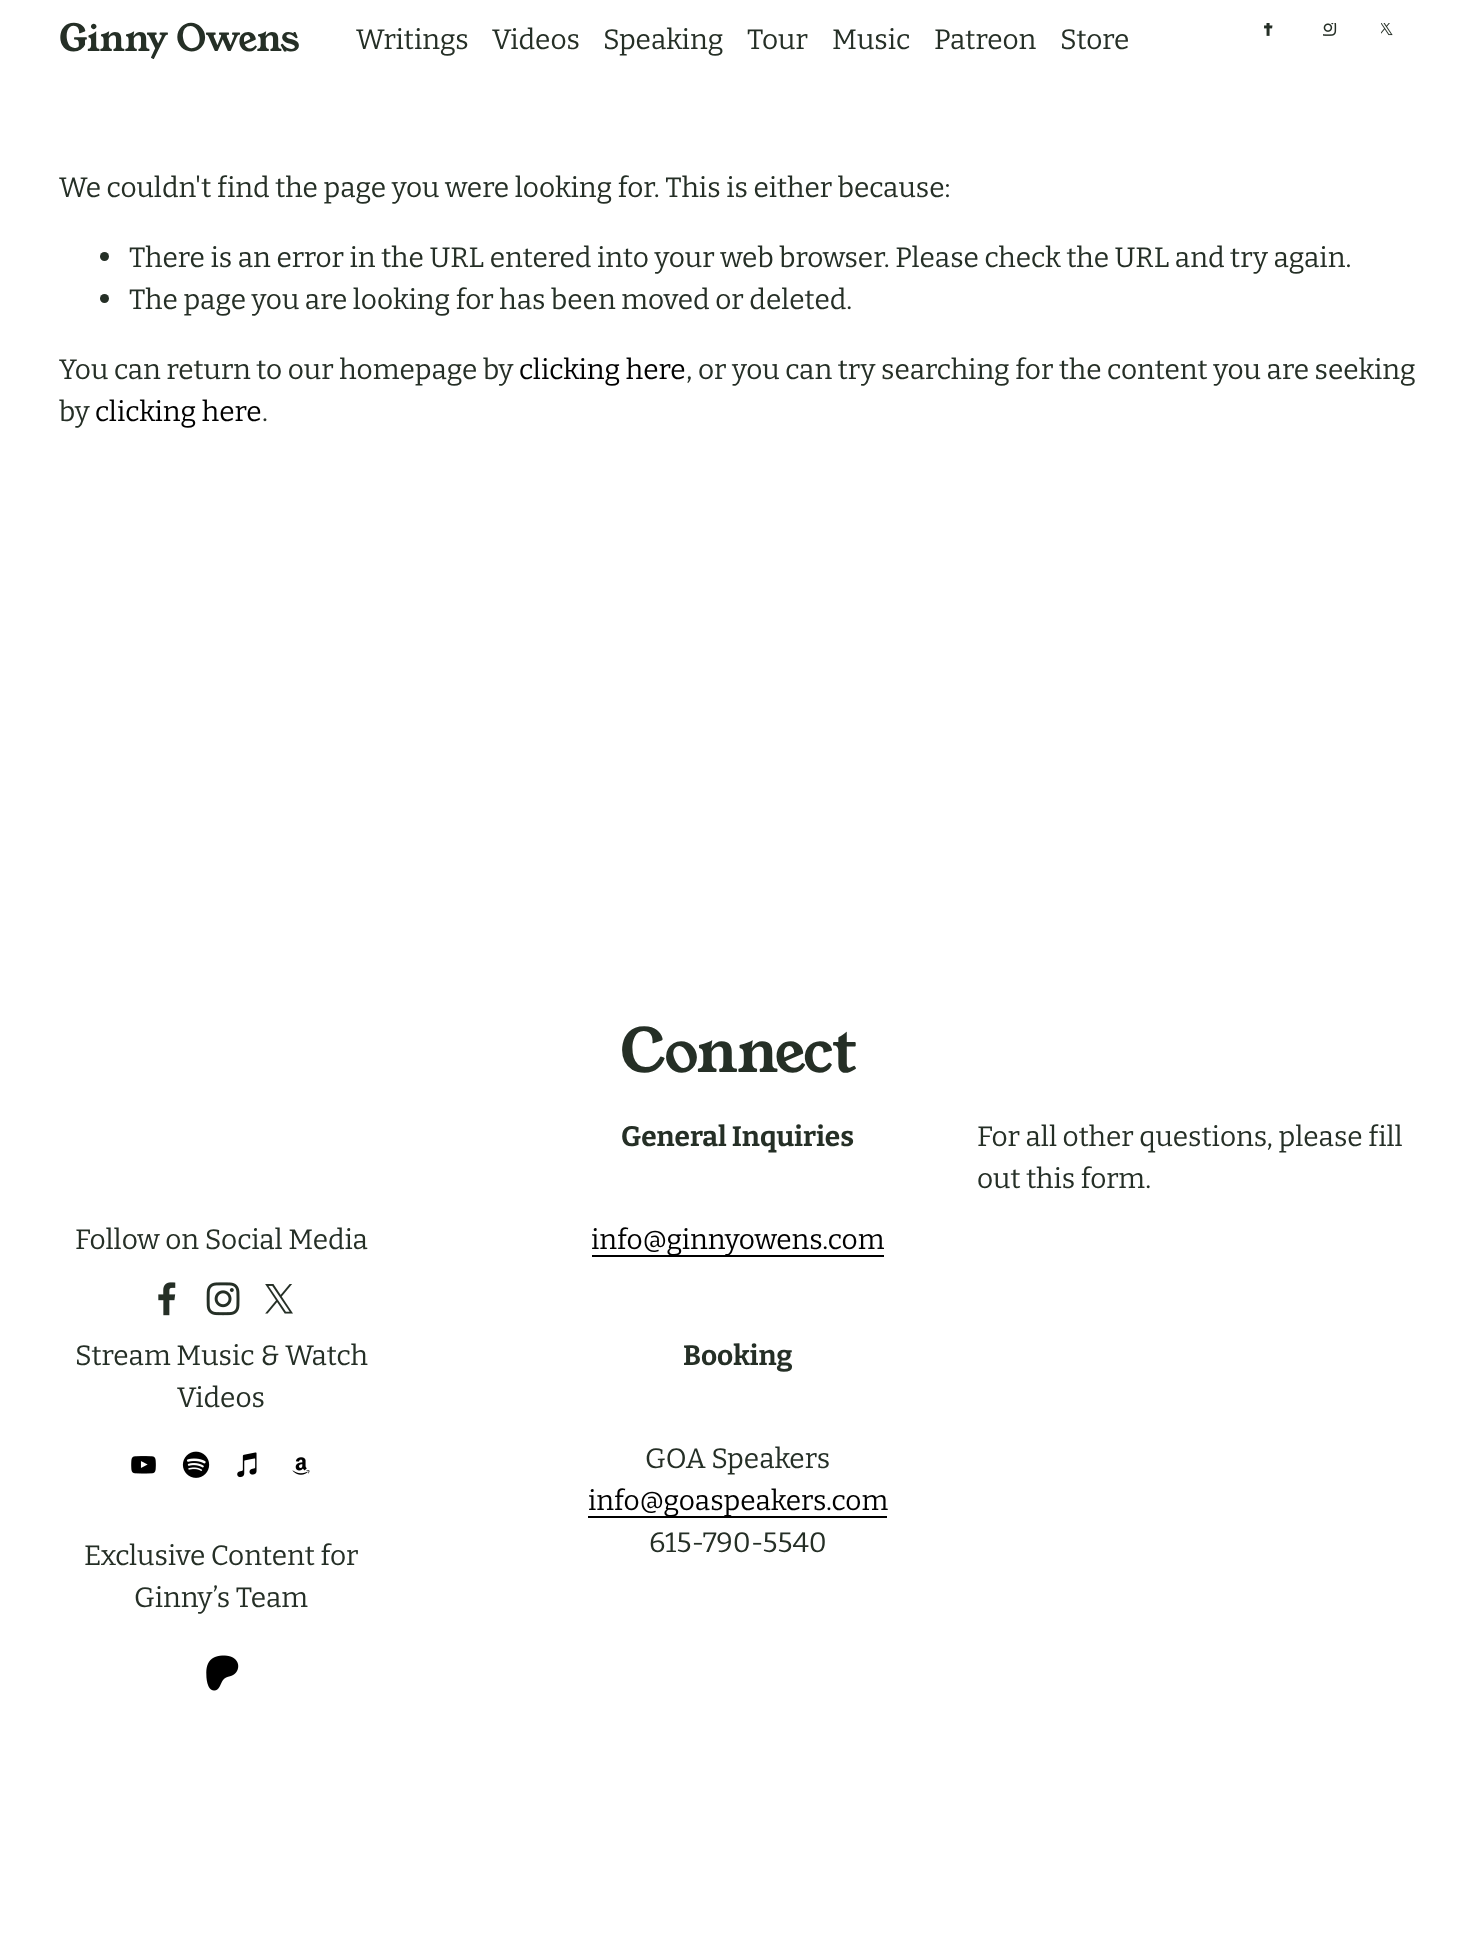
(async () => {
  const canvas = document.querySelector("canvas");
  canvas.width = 1475;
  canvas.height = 1959;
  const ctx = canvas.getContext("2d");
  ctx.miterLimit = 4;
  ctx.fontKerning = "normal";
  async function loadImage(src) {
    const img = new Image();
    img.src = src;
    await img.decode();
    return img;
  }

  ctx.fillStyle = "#ffffff";
  ctx.fillRect(0, 0, 1475, 1959);
  ctx.drawImage(await loadImage("img/1.png"), 1264, 23, 9, 13);
  ctx.drawImage(await loadImage("img/2.png"), 1323, 23, 14, 13);
  ctx.drawImage(await loadImage("img/3.png"), 1381, 23, 12, 13);
  ctx.fillStyle = "#252f26";
  ctx.beginPath();
  ctx.arc(104.5, 256.5, 4.5, 0, Math.PI * 2);
  ctx.fill();
  ctx.beginPath();
  ctx.arc(104.5, 298.5, 4.5, 0, Math.PI * 2);
  ctx.fill();
  ctx.fillStyle = "#000000";
  ctx.fillRect(592, 1255, 292, 2);
  ctx.drawImage(await loadImage("img/4.png"), 158, 1282, 18, 34);
  ctx.drawImage(await loadImage("img/5.png"), 206, 1282, 34, 34);
  ctx.drawImage(await loadImage("img/6.png"), 265, 1284, 28, 30);
  ctx.drawImage(await loadImage("img/7.png"), 131, 1456, 25, 18);
  ctx.drawImage(await loadImage("img/8.png"), 182, 1451, 28, 27);
  ctx.drawImage(await loadImage("img/9.png"), 237, 1452, 20, 26);
  ctx.drawImage(await loadImage("img/10.png"), 292, 1457, 18, 18);
  ctx.fillRect(588, 1516, 299, 2);
  ctx.drawImage(await loadImage("img/11.png"), 206, 1655, 33, 36);
  ctx.letterSpacing = "-0.75px";
  ctx.font = "37px Young Serif";
  ctx.fillStyle = "#252f26";
  ctx.fillText("Ginny Owens", 59, 51);
  ctx.letterSpacing = "0px";
  ctx.font = "28px Bitter";
  for (const [text, x, y] of [
    ["Writings", 356, 49],
    ["Videos", 492, 49],
    ["Speaking", 603, 49],
    ["Tour", 747, 49],
    ["Music", 832, 49],
    ["Patreon", 934, 49],
    ["Store", 1060, 49],
    ["We couldn't find the page you were looking for. This is either because:", 59, 197],
    ["There is an error in the URL entered into your web browser. Please check the URL and try again.", 129, 267],
    ["The page you are looking for has been moved or deleted.", 129, 309],
    ["You can return to our homepage by", 59, 379],
  ]) {
    ctx.fillText(text, x, y);
  }
  ctx.fillStyle = "#000000";
  ctx.fillText("clicking here", 519, 379);
  ctx.fillStyle = "#252f26";
  ctx.fillText(", or you can try searching for the content you are seeking", 686, 379);
  ctx.fillText("by", 59, 421);
  ctx.fillStyle = "#000000";
  ctx.fillText("clicking here", 95, 421);
  ctx.fillStyle = "#252f26";
  ctx.fillText(".", 262, 421);
  ctx.letterSpacing = "-1.25px";
  ctx.font = "60px Young Serif";
  ctx.fillText("Connect", 620, 1072);
  ctx.letterSpacing = "0px";
  ctx.font = "bold 28px Bitter";
  ctx.fillText("General Inquiries", 621, 1146);
  ctx.font = "28px Bitter";
  for (const [text, x, y] of [
    ["For all other questions, please fill", 977, 1146],
    ["out this form.", 977, 1188],
    ["Follow on Social Media", 75, 1249],
  ]) {
    ctx.fillText(text, x, y);
  }
  ctx.fillStyle = "#000000";
  ctx.fillText("info@ginnyowens.com", 591, 1249);
  ctx.fillStyle = "#252f26";
  ctx.fillText("Stream Music & Watch", 75, 1365);
  ctx.fillText("Videos", 177, 1407);
  ctx.font = "bold 28px Bitter";
  ctx.fillText("Booking", 683, 1365);
  ctx.font = "28px Bitter";
  ctx.fillText("GOA Speakers", 645, 1468);
  ctx.fillStyle = "#000000";
  ctx.fillText("info@goaspeakers.com", 588, 1510);
  ctx.fillStyle = "#252f26";
  for (const [text, x, y] of [
    ["615-790-5540", 649, 1552],
    ["Exclusive Content for", 84, 1565],
    ["Ginny’s Team", 134, 1607],
  ]) {
    ctx.fillText(text, x, y);
  }
})();
